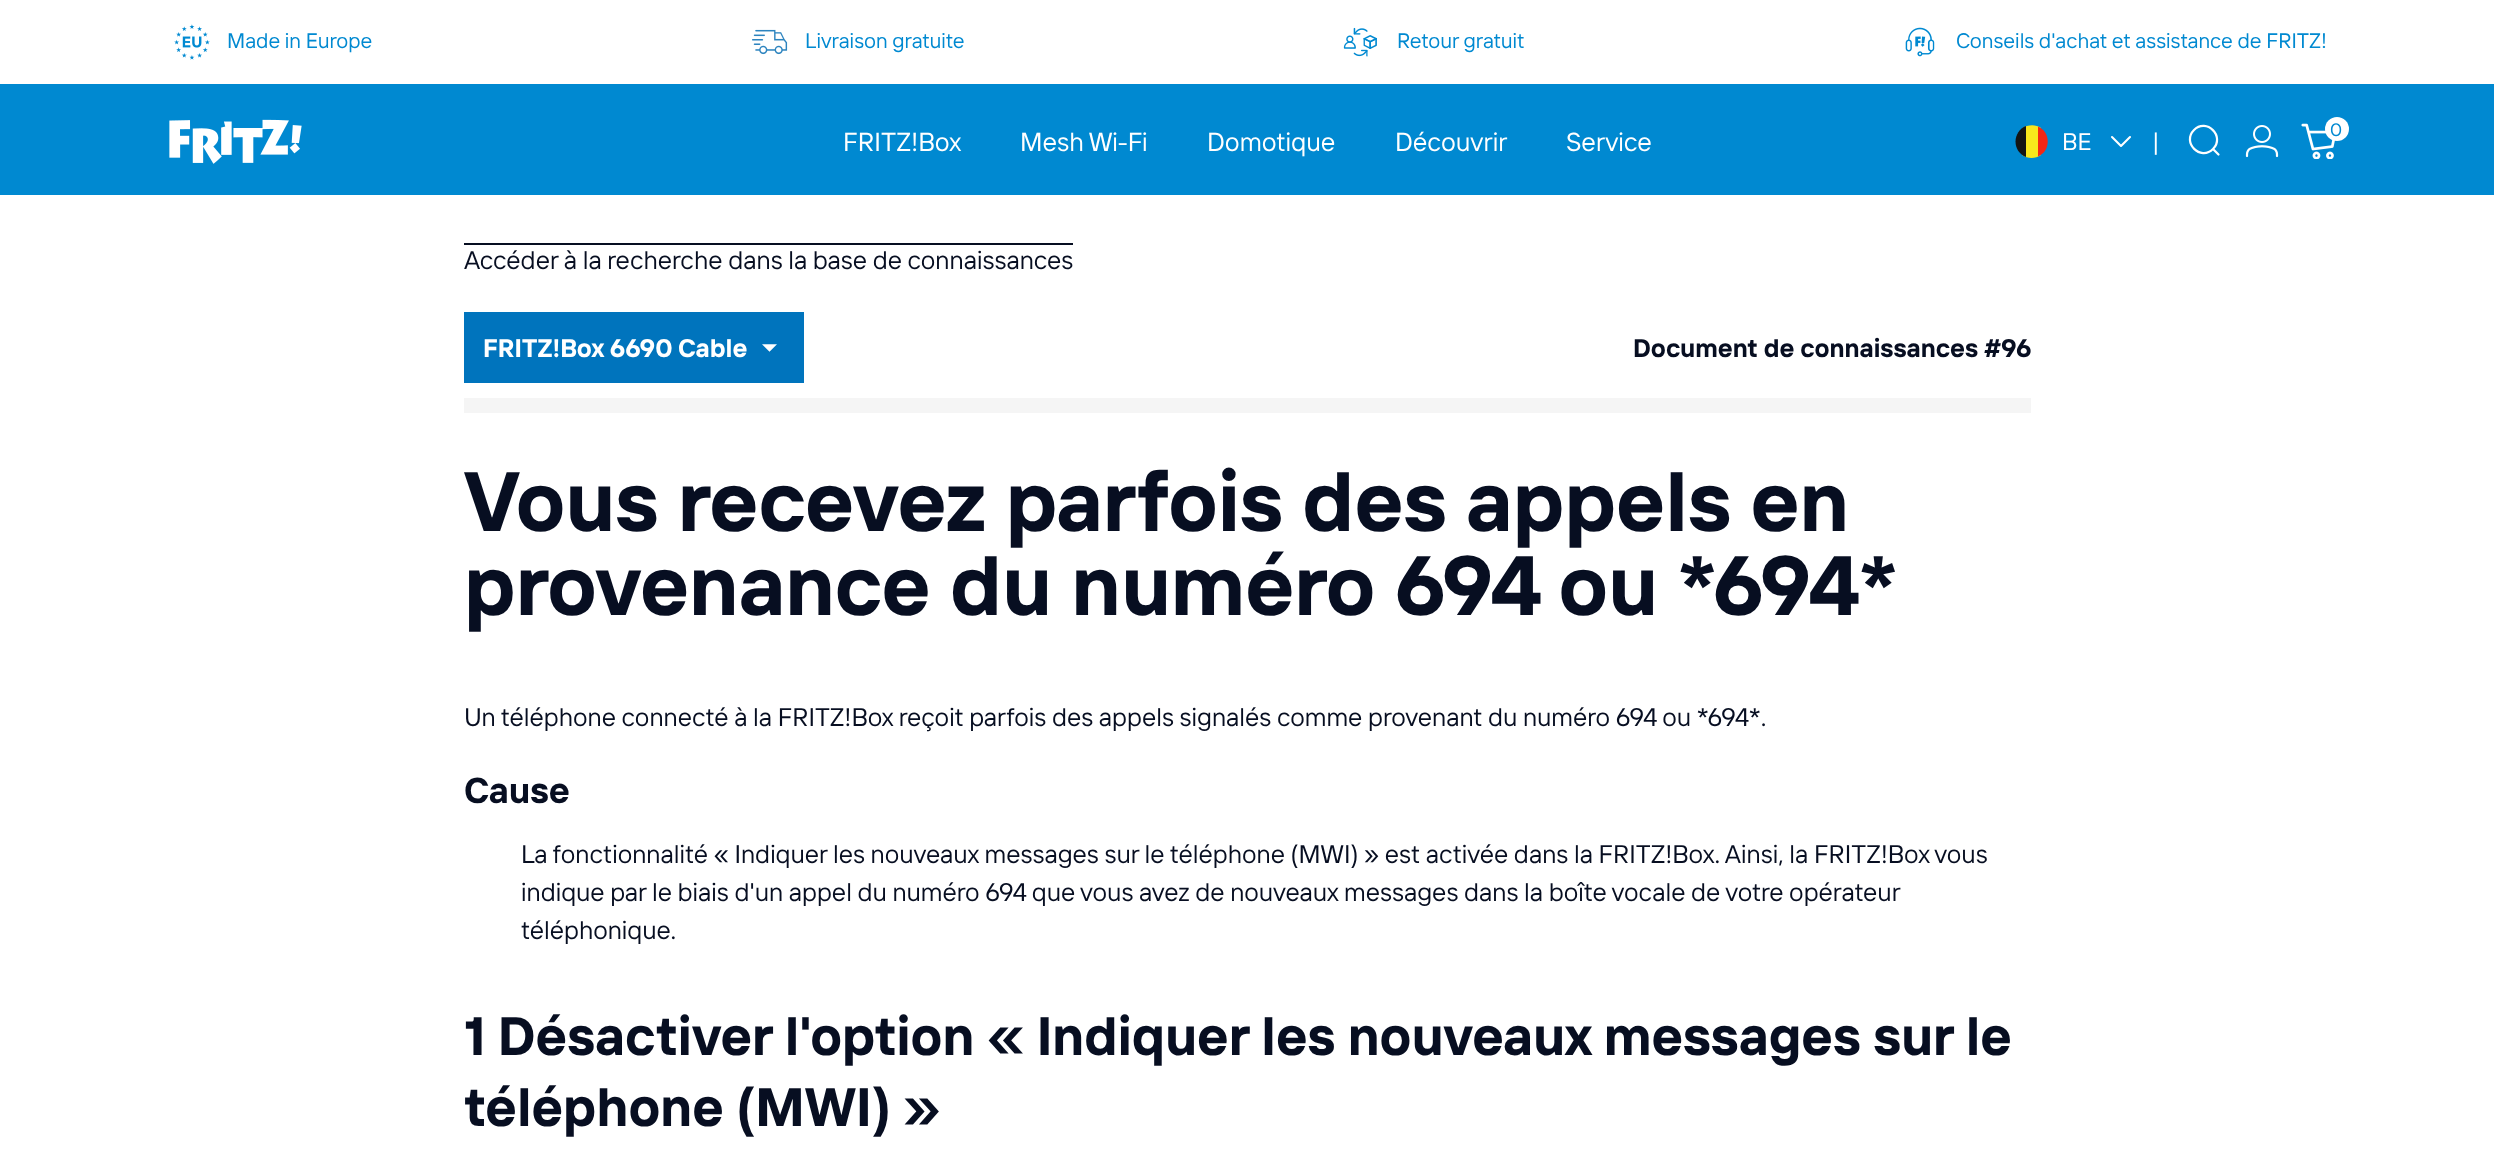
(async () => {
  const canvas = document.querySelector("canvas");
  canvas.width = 2494;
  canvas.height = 1162;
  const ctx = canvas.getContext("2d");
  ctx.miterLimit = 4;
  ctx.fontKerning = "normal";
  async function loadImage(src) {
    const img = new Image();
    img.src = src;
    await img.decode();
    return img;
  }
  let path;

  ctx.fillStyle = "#ffffff";
  ctx.fillRect(0, 0, 2494, 1162);
  ctx.drawImage(await loadImage("img/1.png"), 174, 24, 36, 36);
  ctx.drawImage(await loadImage("img/2.png"), 752, 29, 36, 26);
  ctx.drawImage(await loadImage("img/3.png"), 1343, 27, 34, 30);
  ctx.drawImage(await loadImage("img/4.png"), 1905, 27, 30, 30);
  ctx.fillStyle = "#0089d1";
  ctx.fillRect(0, 84, 2494, 111);
  ctx.drawImage(await loadImage("img/5.png"), 169, 119, 133, 45);
  path = new Path2D("M2218.5 154.5L2213 149M2213 149C2225.5 136.5 2206.5 117.5 2194 130C2181.5 142.5 2200.5 161.5 2213 149Z");
  ctx.strokeStyle = "#ffffff";
  ctx.lineWidth = 2.2;
  ctx.lineCap = "round";
  ctx.stroke(path);
  ctx.drawImage(await loadImage("img/6.png"), 2245, 125, 34, 33);
  ctx.drawImage(await loadImage("img/7.png"), 2301, 123, 34, 36);
  ctx.fillStyle = "#ffffff";
  ctx.beginPath();
  ctx.arc(2337, 129, 12, 0, Math.PI * 2);
  ctx.fill();
  ctx.fillStyle = "#f8e71c";
  path = new Path2D("M2022 155V128.5C2027.5 124.5 2035.5 124 2041 128V155C2035.5 159 2027.5 159 2022 155Z");
  ctx.fill(path);
  ctx.fillStyle = "#f32614";
  path = new Path2D("M2038 156.5V126.5C2051 132 2051 151 2038 156.5Z");
  ctx.fill(path);
  ctx.fillStyle = "#131413";
  path = new Path2D("M2015.5 141.5C2015.5 135 2019.5 128.5 2026 126V157C2019.5 154.5 2015.5 148.5 2015.5 141.5Z");
  ctx.fill(path);
  path = new Path2D("M2112 137L2121 146L2130 137");
  ctx.lineWidth = 2.1;
  ctx.lineJoin = "round";
  ctx.stroke(path);
  for (const [x, y, w, h, color] of [
    [464, 243, 609, 2, "#070e21"],
    [464, 398, 1567, 15, "#f5f5f5"],
    [464, 312, 340, 71, "#0074bd"],
  ]) {
    ctx.fillStyle = color;
    ctx.fillRect(x, y, w, h);
  }
  ctx.drawImage(await loadImage("img/8.png"), 762, 344, 15, 8);
  ctx.font = "21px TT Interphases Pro";
  ctx.fillStyle = "#0089d1";
  for (const [text, x, y] of [
    ["Made in Europe", 227, 48],
    ["Livraison gratuite", 805, 48],
    ["Retour gratuit", 1397, 48],
    ["Conseils d'achat et assistance de FRITZ!", 1956, 48],
  ]) {
    ctx.fillText(text, x, y);
  }
  ctx.font = "26px TT Interphases Pro";
  ctx.fillStyle = "#ffffff";
  for (const [text, x, y] of [
    ["FRITZ!Box", 843, 151],
    ["Mesh Wi-Fi", 1020, 151],
    ["Domotique", 1207, 151],
    ["Découvrir", 1395, 151],
    ["Service", 1566, 151],
  ]) {
    ctx.fillText(text, x, y);
  }
  ctx.font = "18px TT Interphases Pro";
  ctx.fillStyle = "#0089d1";
  ctx.fillText("0", 2330, 136);
  ctx.font = "24px TT Interphases Pro";
  ctx.fillStyle = "#ffffff";
  ctx.fillText("BE", 2062, 150);
  ctx.fillText("|", 2152, 150);
  ctx.font = "25.5px TT Interphases Pro";
  ctx.fillStyle = "#070e21";
  ctx.fillText("Accéder à la recherche dans la base de connaissances", 464, 269);
  ctx.font = "bold 25.5px TT Interphases Pro";
  ctx.fillStyle = "#ffffff";
  ctx.fillText("FRITZ!Box 6690 Cable", 483, 357);
  ctx.fillStyle = "#070e21";
  ctx.fillText("Document de connaissances #96", 1633, 357);
  ctx.font = "bold 84px TT Interphases Pro";
  ctx.fillText("Vous recevez parfois des appels en", 464, 531);
  ctx.fillText("provenance du numéro 694 ou *694*", 464, 615);
  ctx.font = "25.5px TT Interphases Pro";
  ctx.fillText("Un téléphone connecté à la FRITZ!Box reçoit parfois des appels signalés comme provenant du numéro 694 ou *694*.", 464, 726);
  ctx.font = "bold 36px TT Interphases Pro";
  ctx.fillText("Cause", 464, 803);
  ctx.font = "25.5px TT Interphases Pro";
  for (const [text, x, y] of [
    ["La fonctionnalité « Indiquer les nouveaux messages sur le téléphone (MWI) » est activée dans la FRITZ!Box. Ainsi, la FRITZ!Box vous", 521, 863],
    ["indique par le biais d'un appel du numéro 694 que vous avez de nouveaux messages dans la boîte vocale de votre opérateur", 521, 901],
    ["téléphonique.", 521, 939],
  ]) {
    ctx.fillText(text, x, y);
  }
  ctx.font = "bold 54px TT Interphases Pro";
  ctx.fillText("1 Désactiver l'option « Indiquer les nouveaux messages sur le", 464, 1055);
  ctx.fillText("téléphone (MWI) »", 464, 1126);
})();
